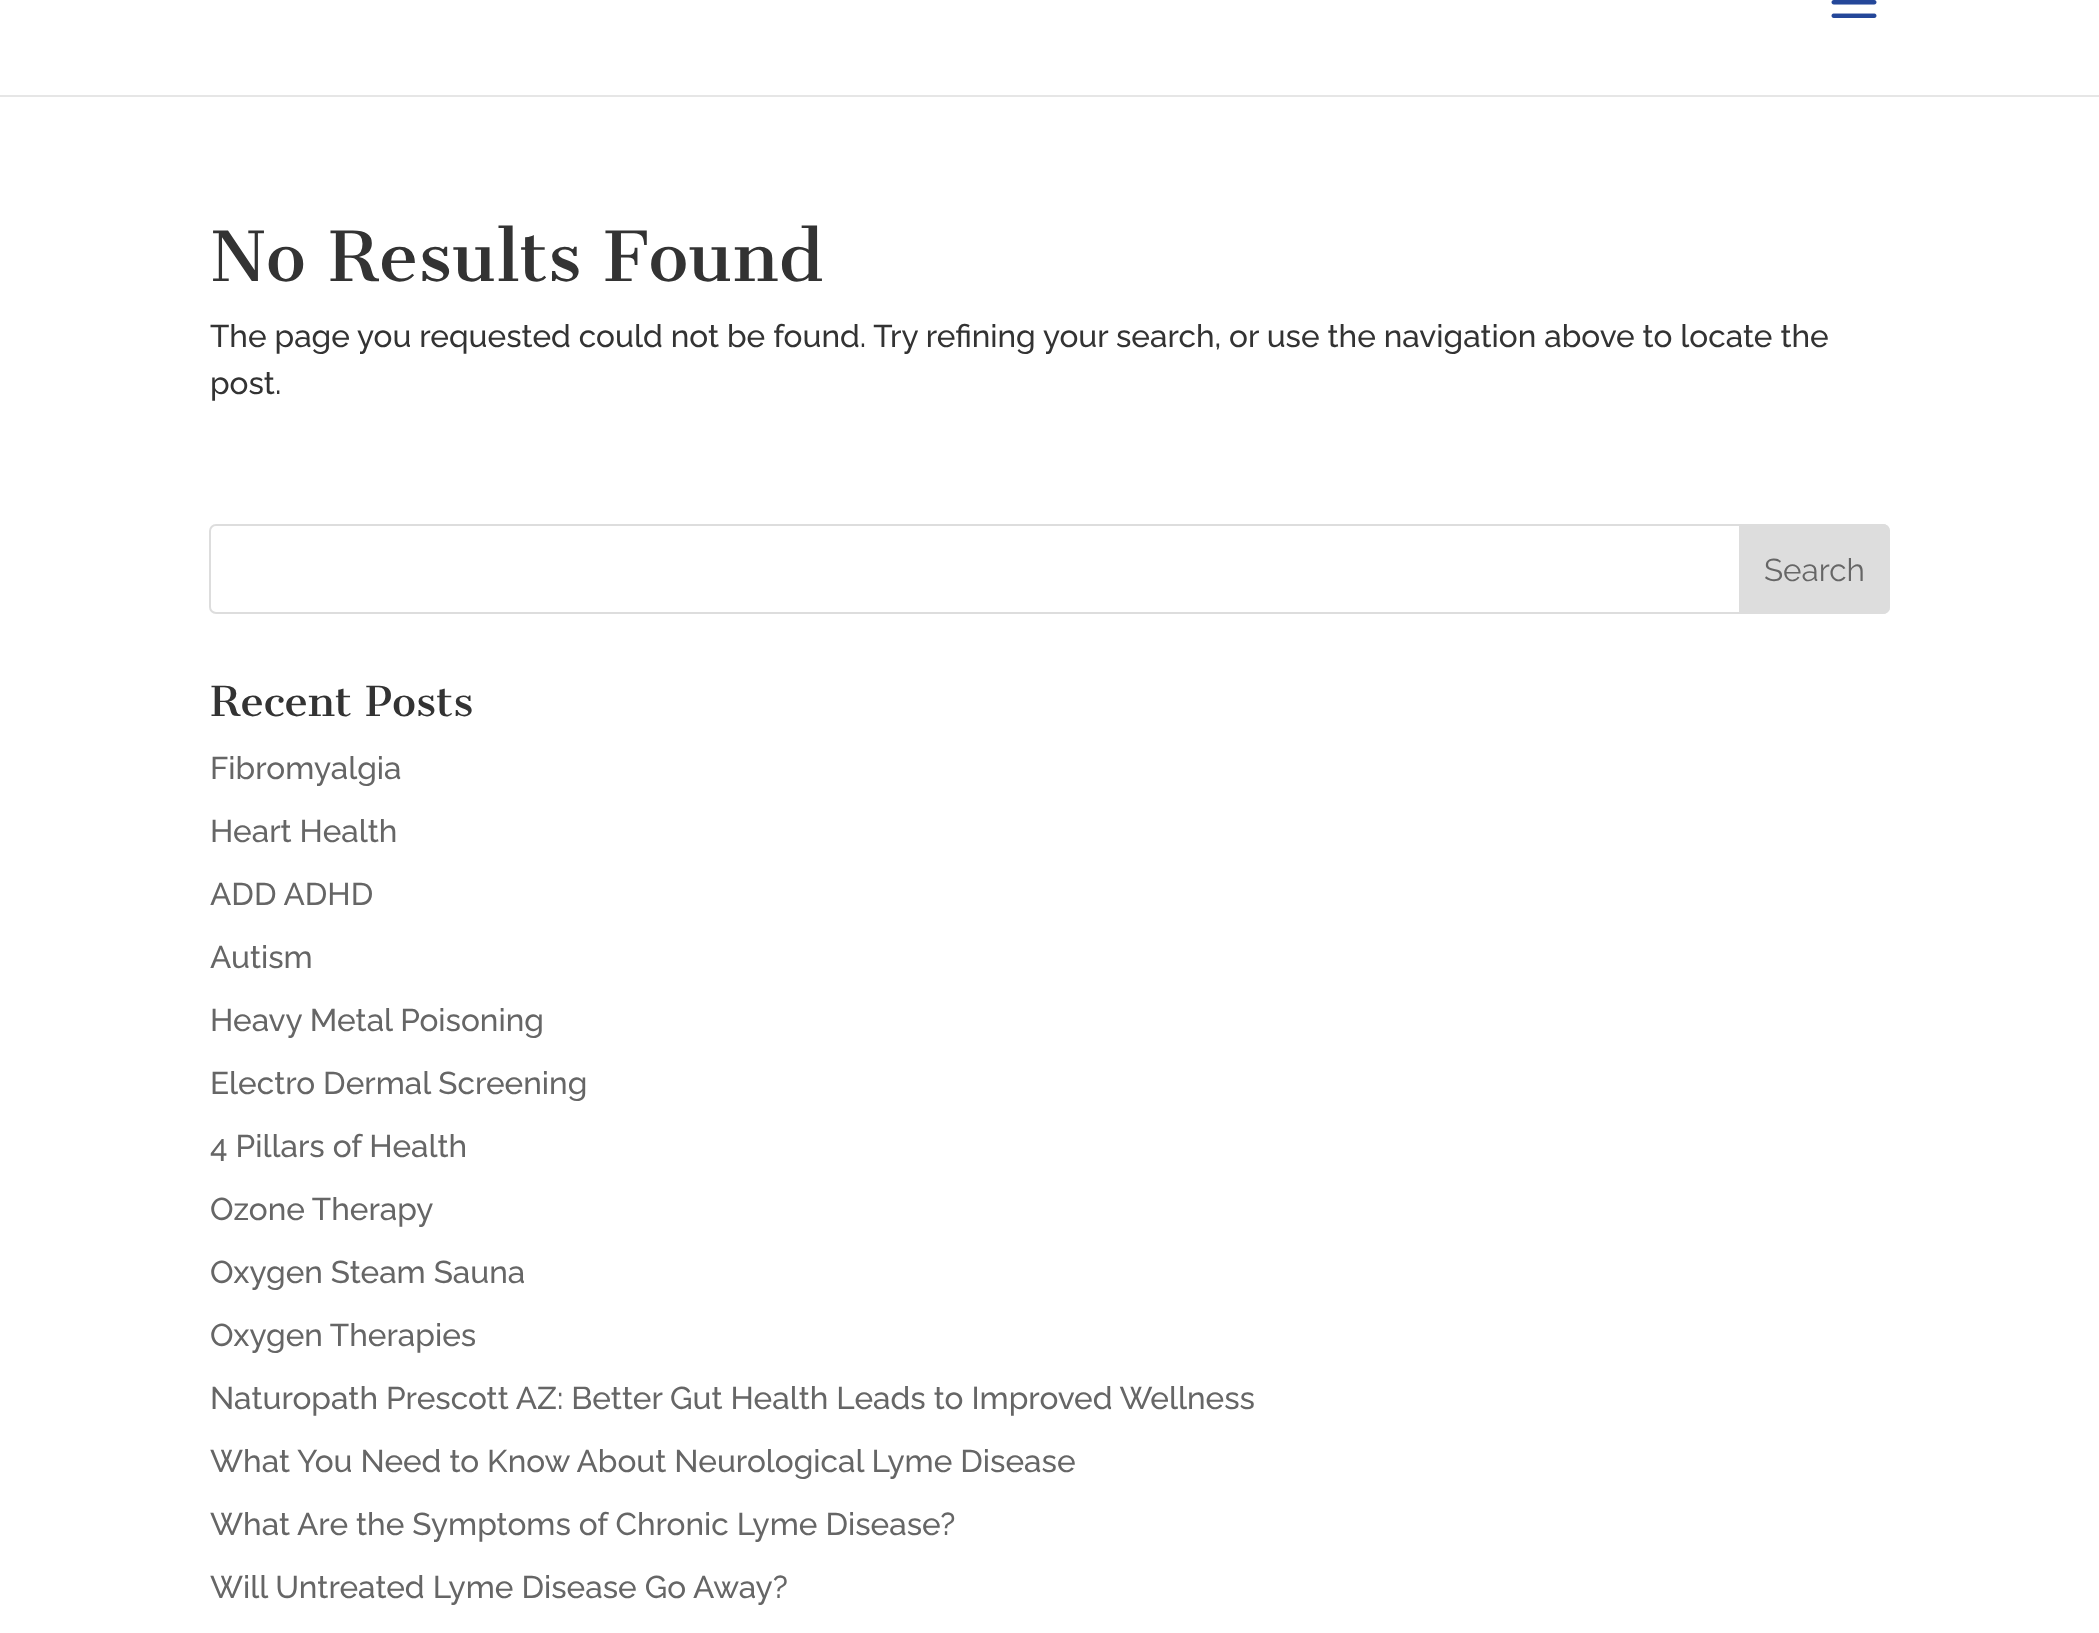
(async () => {
  const canvas = document.querySelector("canvas");
  canvas.width = 2099;
  canvas.height = 1633;
  const ctx = canvas.getContext("2d");
  ctx.miterLimit = 4;
  ctx.fontKerning = "normal";
  async function loadImage(src) {
    const img = new Image();
    img.src = src;
    await img.decode();
    return img;
  }

  ctx.fillStyle = "#ffffff";
  ctx.fillRect(0, 0, 2099, 1633);
  ctx.fillStyle = "#e6e6e6";
  ctx.fillRect(0, 95, 2099, 2);
  ctx.drawImage(await loadImage("img/1.png"), 1831, 0, 46, 18);
  ctx.beginPath();
  ctx.roundRect(210, 525, 1679, 88, 6);
  ctx.strokeStyle = "#dddddd";
  ctx.lineWidth = 2;
  ctx.stroke();
  ctx.fillStyle = "#dddddd";
  ctx.beginPath();
  ctx.roundRect(1740, 525, 149, 88, [0, 6, 6, 0]);
  ctx.fill();
  ctx.stroke();
  ctx.font = "67.5px Cantata One";
  ctx.fillStyle = "#333333";
  ctx.fillText("No Results Found", 210, 281);
  ctx.font = "100 31.5px Raleway";
  ctx.fillText("The page you requested could not be found. Try refining your search, or use the navigation above to locate the", 210, 347);
  ctx.fillText("post.", 210, 394);
  ctx.font = "100 31.5px 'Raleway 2'";
  ctx.fillStyle = "#666666";
  ctx.fillText("Search", 1764, 581);
  ctx.font = "40.5px Cantata One";
  ctx.fillStyle = "#333333";
  ctx.fillText("Recent Posts", 210, 716);
  ctx.font = "100 31.5px Raleway";
  ctx.fillStyle = "#666666";
  for (const [text, x, y] of [
    ["Fibromyalgia", 210, 779],
    ["Heart Health", 210, 842],
    ["ADD ADHD", 210, 905],
    ["Autism", 210, 968],
    ["Heavy Metal Poisoning", 210, 1031],
    ["Electro Dermal Screening", 210, 1094],
    ["4 Pillars of Health", 210, 1157],
    ["Ozone Therapy", 210, 1220],
    ["Oxygen Steam Sauna", 210, 1283],
    ["Oxygen Therapies", 210, 1346],
    ["Naturopath Prescott AZ: Better Gut Health Leads to Improved Wellness", 210, 1409],
    ["What You Need to Know About Neurological Lyme Disease", 210, 1472],
    ["What Are the Symptoms of Chronic Lyme Disease?", 210, 1535],
    ["Will Untreated Lyme Disease Go Away?", 210, 1598],
  ]) {
    ctx.fillText(text, x, y);
  }
})();
